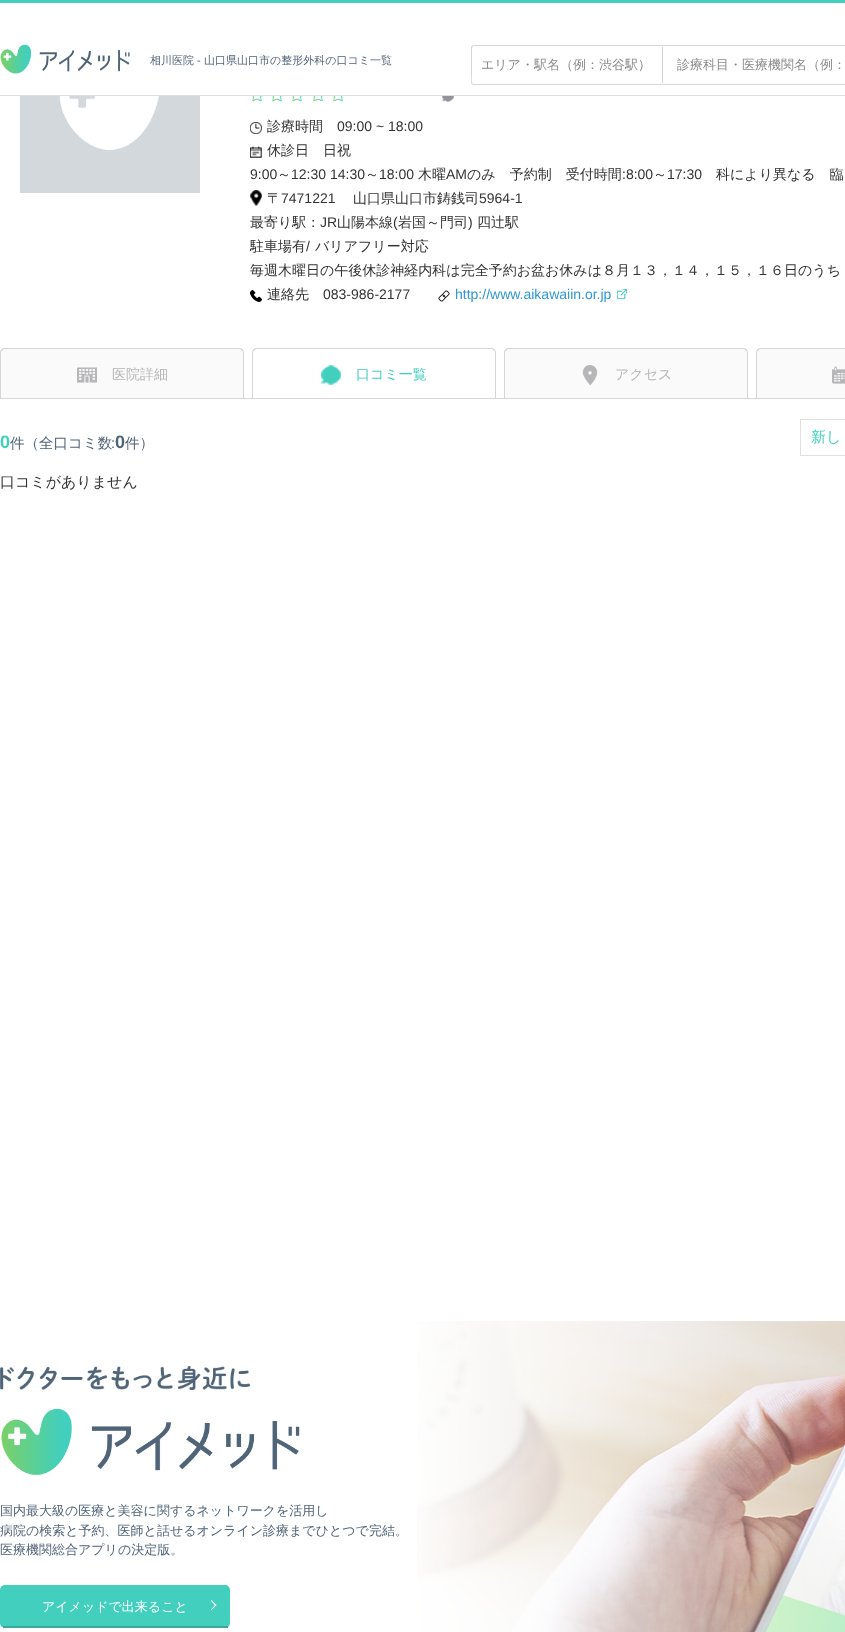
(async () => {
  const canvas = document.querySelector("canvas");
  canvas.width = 845;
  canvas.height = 1632;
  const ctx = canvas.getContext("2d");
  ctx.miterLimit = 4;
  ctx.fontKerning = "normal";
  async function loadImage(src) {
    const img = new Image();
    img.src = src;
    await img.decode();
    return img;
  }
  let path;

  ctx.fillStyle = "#ffffff";
  ctx.fillRect(0, 0, 845, 1632);
  ctx.fillStyle = "#42cfbe";
  ctx.fillRect(0, 0, 845, 3);
  ctx.fillStyle = "#dedede";
  ctx.fillRect(0, 95, 845, 1);
  ctx.drawImage(await loadImage("img/1.png"), 0, 44, 130, 30);
  ctx.fillStyle = "#d6d6d6";
  path = new Path2D("M474 45H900V85H474C472 85 471 84 471 82V48C471 46 472 45 474 45ZM474 46H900V84H473C471 82 472 77 472 76V48L473 46Z");
  ctx.fill(path, "evenodd");
  ctx.fillRect(662, 47, 1, 36);
  ctx.drawImage(await loadImage("img/2.png"), 20, 96, 180, 97);
  ctx.drawImage(await loadImage("img/3.png"), 252, 96, 10, 6);
  ctx.drawImage(await loadImage("img/3.png"), 272, 96, 10, 6);
  ctx.drawImage(await loadImage("img/3.png"), 292, 96, 10, 6);
  ctx.drawImage(await loadImage("img/3.png"), 313, 96, 10, 6);
  ctx.drawImage(await loadImage("img/3.png"), 333, 96, 10, 6);
  ctx.drawImage(await loadImage("img/4.png"), 442, 96, 12, 6);
  ctx.drawImage(await loadImage("img/5.png"), 250, 122, 12, 12);
  ctx.drawImage(await loadImage("img/6.png"), 250, 146, 12, 12);
  ctx.drawImage(await loadImage("img/7.png"), 250, 190, 12, 16);
  ctx.drawImage(await loadImage("img/8.png"), 250, 290, 12, 12);
  ctx.drawImage(await loadImage("img/9.png"), 438, 290, 12, 12);
  ctx.drawImage(await loadImage("img/10.png"), 617, 289, 10, 10);
  ctx.fillRect(0, 398, 845, 1);
  ctx.fillStyle = "#fafafa";
  ctx.beginPath();
  ctx.roundRect(0, 348, 244, 50, [5, 5, 0, 0]);
  ctx.fill();
  ctx.fillStyle = "#d6d6d6";
  path = new Path2D("M5 348H239C242 348 244 350 244 353V398H0V353C0 350 2 348 5 348ZM5 349H239C241 349 243 351 243 353V398H1V353C1 351 3 349 5 349Z");
  ctx.fill(path, "evenodd");
  ctx.drawImage(await loadImage("img/11.png"), 77, 367, 20, 16);
  path = new Path2D("M257 348H491C494 348 496 350 496 353V398H252V353C252 350 254 348 257 348ZM257 349H491C493 349 495 351 495 353V398H253V353C253 351 255 349 257 349Z");
  ctx.fill(path, "evenodd");
  ctx.drawImage(await loadImage("img/12.png"), 321, 365, 20, 20);
  ctx.fillStyle = "#fafafa";
  ctx.beginPath();
  ctx.roundRect(504, 348, 244, 50, [5, 5, 0, 0]);
  ctx.fill();
  ctx.fillStyle = "#d6d6d6";
  path = new Path2D("M509 348H743C746 348 748 350 748 353V398H504V353C504 350 506 348 509 348ZM509 349H743C745 349 747 351 747 353V398H505V353C505 351 507 349 509 349Z");
  ctx.fill(path, "evenodd");
  ctx.drawImage(await loadImage("img/13.png"), 582, 365, 16, 20);
  ctx.fillStyle = "#fafafa";
  path = new Path2D("M761 348H845C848 348 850 350 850 353V398H756V353C756 350 758 348 761 348Z");
  ctx.fill(path);
  ctx.fillStyle = "#d6d6d6";
  path = new Path2D("M761 348H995C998 348 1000 350 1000 353V398H756V353C756 350 758 348 761 348ZM761 349H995C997 349 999 351 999 353V398H757V353C757 351 759 349 761 349Z");
  ctx.fill(path, "evenodd");
  ctx.drawImage(await loadImage("img/14.png"), 832, 366, 13, 18);
  ctx.strokeStyle = "#e0e0e0";
  ctx.strokeRect(800.5, 419.5, 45, 36);
  ctx.drawImage(await loadImage("img/15.png"), 417, 1321, 428, 311);
  ctx.drawImage(await loadImage("img/16.png"), 0, 1366, 250, 24);
  ctx.drawImage(await loadImage("img/17.png"), 1, 1408, 299, 67);
  ctx.fillStyle = "#42cfbe";
  ctx.beginPath();
  ctx.roundRect(0, 1585, 230, 43, 5);
  ctx.fill();
  ctx.fillStyle = "#3ea89c";
  ctx.fillRect(3, 1626, 225, 2);
  ctx.fillStyle = "#ffffff";
  path = new Path2D("M211.5 1600L216.5 1605L215.5 1606L211 1601Z");
  ctx.fill(path);
  path = new Path2D("M215.5 1604.5L216.5 1605L211.5 1610L211 1609.5Z");
  ctx.fill(path);
  ctx.font = "500 11px WenQuanYi Zen Hei";
  ctx.fillStyle = "#506478";
  ctx.fillText("相川医院", 150, 64);
  ctx.font = "11px Liberation Sans";
  ctx.fillText("-", 197, 64);
  ctx.font = "500 11px WenQuanYi Zen Hei";
  ctx.fillText("山口県山口市の整形外科の口コミ一覧", 204, 64);
  ctx.font = "500 13px WenQuanYi Zen Hei";
  ctx.fillStyle = "#8a8a8a";
  ctx.fillText("エリア・駅名（例：渋谷駅）", 481, 69);
  ctx.fillText("診療科目・医療機関名（例：", 677, 69);
  ctx.font = "500 14px WenQuanYi Zen Hei";
  ctx.fillStyle = "#333333";
  ctx.fillText("診療時間", 267, 131);
  ctx.font = "14px Liberation Sans";
  ctx.fillText("09:00 ~ 18:00", 337, 131);
  ctx.font = "500 14px WenQuanYi Zen Hei";
  ctx.fillText("休診日", 267, 155);
  ctx.fillText("日祝", 323, 155);
  ctx.font = "14px Liberation Sans";
  ctx.fillText("9:00", 250, 179);
  ctx.font = "500 14px WenQuanYi Zen Hei";
  ctx.fillText("～", 277, 179);
  ctx.font = "14px Liberation Sans";
  ctx.fillText("12:30 14:30", 291, 179);
  ctx.font = "500 14px WenQuanYi Zen Hei";
  ctx.fillText("～", 365, 179);
  ctx.font = "14px Liberation Sans";
  ctx.fillText("18:00", 379, 179);
  ctx.font = "500 14px WenQuanYi Zen Hei";
  ctx.fillText("木曜", 418, 179);
  ctx.font = "14px Liberation Sans";
  ctx.fillText("AM", 446, 179);
  ctx.font = "500 14px WenQuanYi Zen Hei";
  ctx.fillText("のみ　予約制　受付時間", 467, 179);
  ctx.font = "14px Liberation Sans";
  ctx.fillText(":8:00", 622, 179);
  ctx.font = "500 14px WenQuanYi Zen Hei";
  ctx.fillText("～", 653, 179);
  ctx.font = "14px Liberation Sans";
  ctx.fillText("17:30", 667, 179);
  ctx.font = "500 14px WenQuanYi Zen Hei";
  ctx.fillText("科により異なる　臨", 716, 179);
  ctx.fillText("〒", 267, 203);
  ctx.font = "14px Liberation Sans";
  ctx.fillText("7471221", 281, 203);
  ctx.font = "500 14px WenQuanYi Zen Hei";
  ctx.fillText("山口県山口市鋳銭司", 353, 203);
  ctx.font = "14px Liberation Sans";
  ctx.fillText("5964-1", 479, 203);
  ctx.font = "500 14px WenQuanYi Zen Hei";
  ctx.fillText("最寄り駅：", 250, 227);
  ctx.font = "14px Liberation Sans";
  ctx.fillText("JR", 320, 227);
  ctx.font = "500 14px WenQuanYi Zen Hei";
  ctx.fillText("山陽本線", 337, 227);
  ctx.font = "14px Liberation Sans";
  ctx.fillText("(", 393, 227);
  ctx.font = "500 14px WenQuanYi Zen Hei";
  ctx.fillText("岩国～門司", 398, 227);
  ctx.font = "14px Liberation Sans";
  ctx.fillText(")", 468, 227);
  ctx.font = "500 14px WenQuanYi Zen Hei";
  ctx.fillText("四辻駅", 477, 227);
  ctx.fillText("駐車場有", 250, 251);
  ctx.font = "14px Liberation Sans";
  ctx.fillText("/", 306, 251);
  ctx.font = "500 14px WenQuanYi Zen Hei";
  for (const [text, x, y] of [
    ["バリアフリー対応", 315, 251],
    ["毎週木曜日の午後休診神経内科は完全予約お盆お休みは８月１３，１４，１５，１６日のうち", 250, 275],
    ["連絡先", 267, 299],
  ]) {
    ctx.fillText(text, x, y);
  }
  ctx.font = "14px Liberation Sans";
  ctx.fillText("083-986-2177", 323, 299);
  ctx.fillStyle = "#3097d1";
  ctx.fillText("http://www.aikawaiin.or.jp", 455, 299);
  ctx.font = "500 14px WenQuanYi Zen Hei";
  ctx.fillStyle = "#b6b6b8";
  ctx.fillText("医院詳細", 112, 379);
  ctx.fillStyle = "#42cfbe";
  ctx.fillText("口コミ一覧", 356, 379);
  ctx.fillStyle = "#b6b6b8";
  ctx.fillText("アクセス", 615, 379);
  ctx.font = "bold 18px Liberation Sans";
  ctx.fillStyle = "#42cfbe";
  ctx.fillText("0", 0, 448);
  ctx.font = "500 14.5px WenQuanYi Zen Hei";
  ctx.fillStyle = "#506478";
  ctx.fillText("件（全口コミ数", 10, 448);
  ctx.font = "14.5px Liberation Sans";
  ctx.fillText(":", 111, 448);
  ctx.font = "bold 18px Liberation Sans";
  ctx.fillText("0", 115, 448);
  ctx.font = "500 14.5px WenQuanYi Zen Hei";
  ctx.fillText("件）", 125, 448);
  ctx.font = "500 15px WenQuanYi Zen Hei";
  ctx.fillStyle = "#42cfbe";
  ctx.fillText("新し", 811, 442);
  ctx.fillStyle = "#333333";
  ctx.fillText("口コミがありません", 0, 487);
  ctx.font = "500 13px WenQuanYi Zen Hei";
  ctx.fillStyle = "#506478";
  for (const [text, x, y] of [
    ["国内最大級の医療と美容に関するネットワークを活用し", 0, 1515],
    ["病院の検索と予約、医師と話せるオンライン診療までひとつで完結。", 0, 1535],
    ["医療機関総合アプリの決定版。", 0, 1554],
  ]) {
    ctx.fillText(text, x, y);
  }
  ctx.fillStyle = "#ffffff";
  ctx.fillText("アイメッドで出来ること", 42, 1611);
})();
